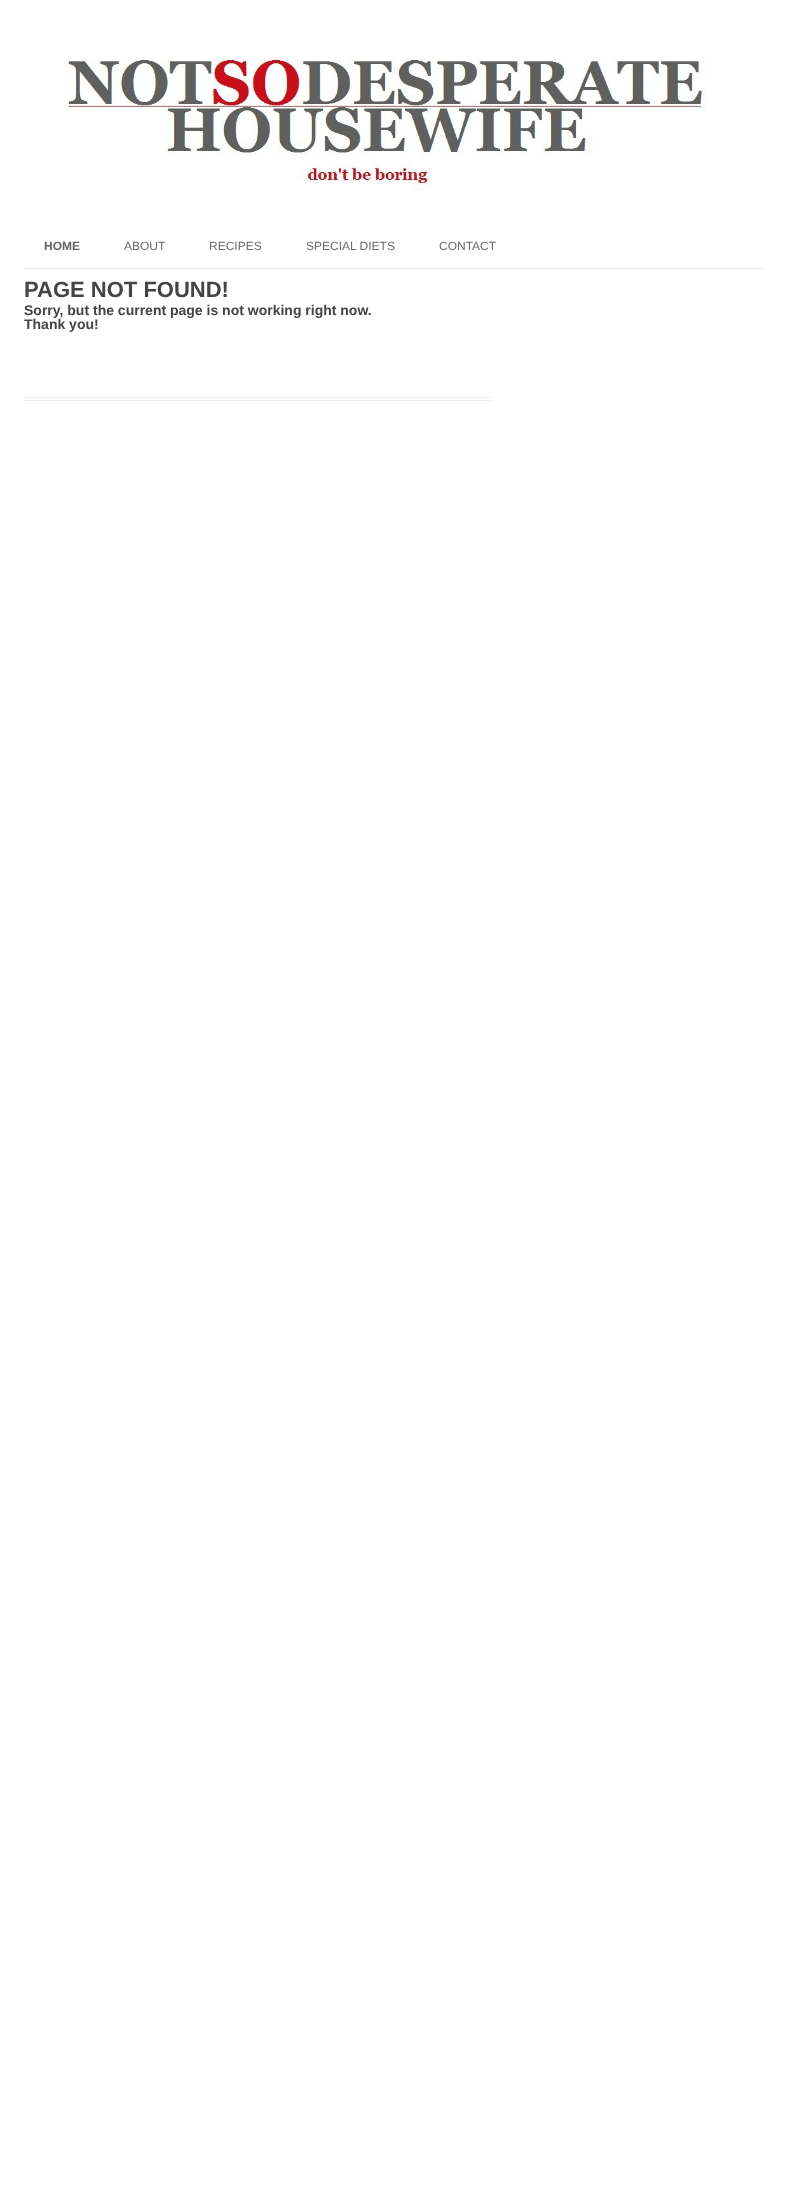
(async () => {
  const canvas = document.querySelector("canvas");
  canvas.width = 788;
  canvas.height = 2195;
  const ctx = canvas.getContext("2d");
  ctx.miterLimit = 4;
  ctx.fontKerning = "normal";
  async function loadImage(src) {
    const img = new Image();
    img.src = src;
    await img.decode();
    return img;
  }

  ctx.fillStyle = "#ffffff";
  ctx.fillRect(0, 0, 788, 2195);
  ctx.drawImage(await loadImage("img/1.png"), 64, 58, 642, 133);
  for (const [x, y, w, h, color] of [
    [24, 268, 740, 1, "#e6e6e6"],
    [24, 397, 467, 1, "#ededed"],
    [24, 400, 467, 1, "#ededed"],
  ]) {
    ctx.fillStyle = color;
    ctx.fillRect(x, y, w, h);
  }
  ctx.font = "bold 12px Liberation Sans";
  ctx.fillStyle = "#636363";
  ctx.fillText("HOME", 44, 250);
  ctx.font = "12px Liberation Sans";
  ctx.fillStyle = "#6a6a6a";
  for (const [text, x, y] of [
    ["ABOUT", 124, 250],
    ["RECIPES", 209, 250],
    ["SPECIAL DIETS", 306, 250],
    ["CONTACT", 439, 250],
  ]) {
    ctx.fillText(text, x, y);
  }
  ctx.font = "bold 22px Liberation Sans";
  ctx.fillStyle = "#444444";
  ctx.fillText("PAGE NOT FOUND!", 24, 297);
  ctx.font = "bold 14px Liberation Sans";
  ctx.fillText("Sorry, but the current page is not working right now.", 24, 315);
  ctx.fillText("Thank you!", 24, 329);
})();
